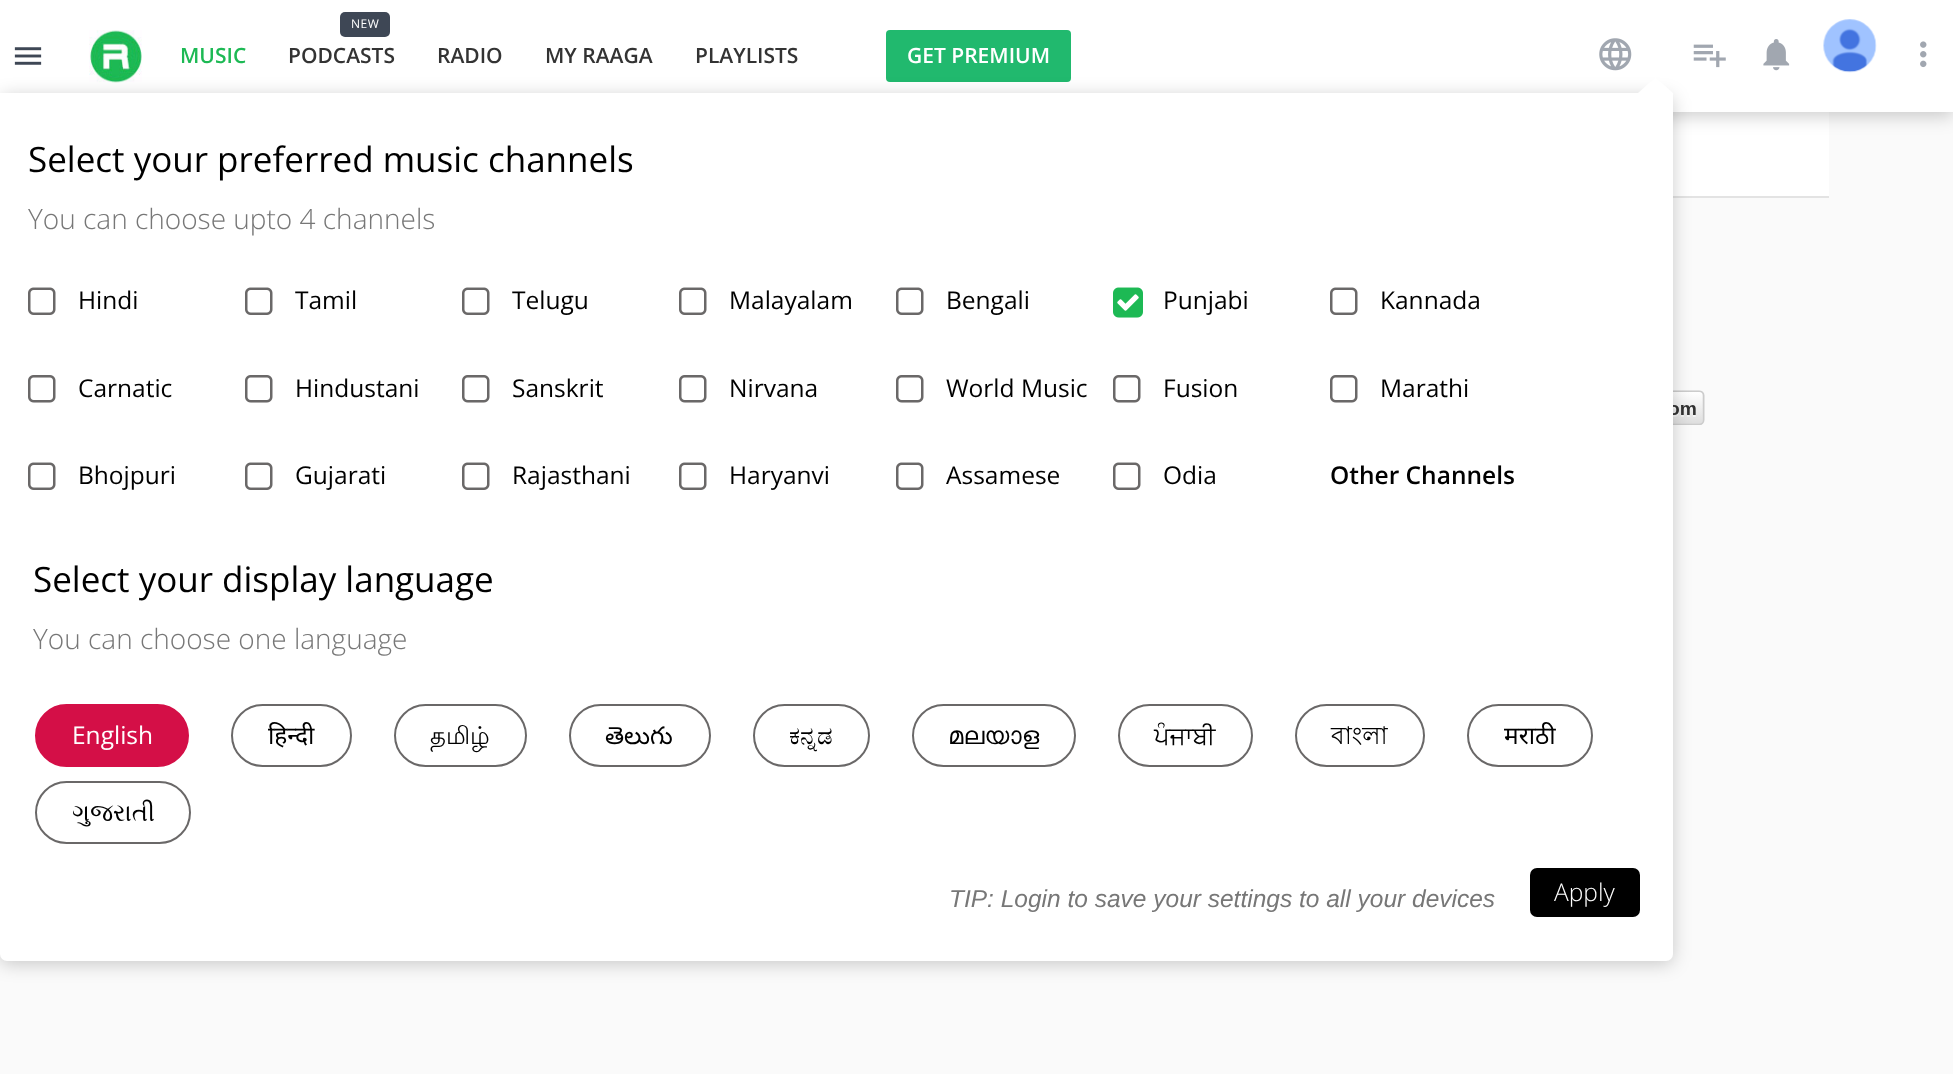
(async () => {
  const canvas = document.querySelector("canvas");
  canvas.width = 1953;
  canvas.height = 1074;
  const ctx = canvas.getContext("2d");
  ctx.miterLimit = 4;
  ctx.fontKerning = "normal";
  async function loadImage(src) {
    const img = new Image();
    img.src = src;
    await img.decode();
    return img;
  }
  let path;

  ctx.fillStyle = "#fafafa";
  ctx.fillRect(0, 0, 1953, 1074);
  ctx.fillStyle = "#ffffff";
  ctx.fillRect(1673, 112, 156, 84);
  ctx.fillStyle = "rgba(0, 0, 0, 0.2)";
  ctx.filter = "blur(9px)";
  ctx.beginPath();
  ctx.rect(0, 4, 1953, 112);
  ctx.fill();
  ctx.filter = "none";
  ctx.fillStyle = "#ffffff";
  ctx.fillRect(0, 0, 1953, 112);
  ctx.drawImage(await loadImage("img/1.png"), 14, 47, 28, 18);
  ctx.drawImage(await loadImage("img/2.png"), 89, 30, 53, 53);
  ctx.fillStyle = "#3e4755";
  ctx.beginPath();
  ctx.roundRect(340, 12, 50, 25, 5);
  ctx.fill();
  ctx.fillStyle = "#21b96e";
  ctx.beginPath();
  ctx.roundRect(886, 30, 185, 52, 4);
  ctx.fill();
  ctx.drawImage(await loadImage("img/3.png"), 1693, 44, 33, 24);
  ctx.drawImage(await loadImage("img/4.png"), 1763, 39, 27, 32);
  ctx.drawImage(await loadImage("img/5.png"), 1823, 19, 54, 54);
  ctx.drawImage(await loadImage("img/6.png"), 1920, 41, 7, 27);
  ctx.drawImage(await loadImage("img/7.png"), 1599, 38, 33, 33);
  ctx.fillStyle = "#e3e3e3";
  ctx.fillRect(1673, 196, 156, 2);
  ctx.drawImage(await loadImage("img/15.png"), 1673, 390, 32, 35);
  ctx.fillStyle = "rgba(0, 0, 0, 0.2)";
  ctx.filter = "blur(9px)";
  ctx.beginPath();
  ctx.roundRect(0, 96, 1673, 868, 7);
  ctx.fill();
  ctx.filter = "none";
  ctx.fillStyle = "#ffffff";
  ctx.beginPath();
  ctx.roundRect(0, 93, 1673, 868, [0, 0, 7, 7]);
  ctx.fill();
  path = new Path2D("M1673 93H1638L1655.5 77Z");
  ctx.fill(path);
  ctx.drawImage(await loadImage("img/8.png"), 28, 287, 28, 28);
  ctx.drawImage(await loadImage("img/8.png"), 245, 287, 28, 28);
  ctx.drawImage(await loadImage("img/9.png"), 462, 287, 28, 28);
  ctx.drawImage(await loadImage("img/8.png"), 679, 287, 28, 28);
  ctx.drawImage(await loadImage("img/8.png"), 896, 287, 28, 28);
  ctx.drawImage(await loadImage("img/10.png"), 1113, 287, 30, 31);
  ctx.drawImage(await loadImage("img/8.png"), 1330, 287, 28, 28);
  ctx.drawImage(await loadImage("img/11.png"), 28, 375, 28, 28);
  ctx.drawImage(await loadImage("img/11.png"), 245, 375, 28, 28);
  ctx.drawImage(await loadImage("img/12.png"), 462, 375, 28, 28);
  ctx.drawImage(await loadImage("img/11.png"), 679, 375, 28, 28);
  ctx.drawImage(await loadImage("img/11.png"), 896, 375, 28, 28);
  ctx.drawImage(await loadImage("img/11.png"), 1113, 375, 28, 28);
  ctx.drawImage(await loadImage("img/11.png"), 1330, 375, 28, 28);
  ctx.drawImage(await loadImage("img/13.png"), 28, 462, 28, 28);
  ctx.drawImage(await loadImage("img/13.png"), 245, 462, 28, 28);
  ctx.drawImage(await loadImage("img/14.png"), 462, 462, 28, 28);
  ctx.drawImage(await loadImage("img/13.png"), 679, 462, 28, 28);
  ctx.drawImage(await loadImage("img/13.png"), 896, 462, 28, 28);
  ctx.drawImage(await loadImage("img/13.png"), 1113, 462, 28, 28);
  ctx.fillStyle = "#d40f47";
  ctx.beginPath();
  ctx.roundRect(36, 705, 152, 61, 30.5);
  ctx.fill();
  ctx.strokeStyle = "#d40f47";
  ctx.lineWidth = 2;
  ctx.stroke();
  ctx.beginPath();
  ctx.roundRect(232, 705, 119, 61, 30.5);
  ctx.strokeStyle = "#6a6868";
  ctx.stroke();
  ctx.beginPath();
  ctx.roundRect(395, 705, 131, 61, 30.5);
  ctx.stroke();
  ctx.beginPath();
  ctx.roundRect(570, 705, 140, 61, 30.5);
  ctx.stroke();
  ctx.beginPath();
  ctx.roundRect(754, 705, 115, 61, 30.5);
  ctx.stroke();
  ctx.beginPath();
  ctx.roundRect(913, 705, 162, 61, 30.5);
  ctx.stroke();
  ctx.beginPath();
  ctx.roundRect(1119, 705, 133, 61, 30.5);
  ctx.stroke();
  ctx.beginPath();
  ctx.roundRect(1296, 705, 128, 61, 30.5);
  ctx.stroke();
  ctx.beginPath();
  ctx.roundRect(1468, 705, 124, 61, 30.5);
  ctx.stroke();
  ctx.beginPath();
  ctx.roundRect(36, 782, 154, 61, 30.5);
  ctx.stroke();
  ctx.fillStyle = "#000000";
  ctx.beginPath();
  ctx.roundRect(1530, 868, 110, 49, 7);
  ctx.fill();
  ctx.font = "600 21px Open Sans";
  ctx.fillStyle = "#1db954";
  ctx.fillText("MUSIC", 180, 63);
  ctx.letterSpacing = "0.5px";
  ctx.font = "12px Open Sans";
  ctx.fillStyle = "#ffffff";
  ctx.fillText("NEW", 351, 28);
  ctx.letterSpacing = "0px";
  ctx.font = "600 21px Open Sans";
  ctx.fillStyle = "#333333";
  for (const [text, x, y] of [
    ["PODCASTS", 288, 63],
    ["RADIO", 437, 63],
    ["MY RAAGA", 545, 63],
    ["PLAYLISTS", 695, 63],
  ]) {
    ctx.fillText(text, x, y);
  }
  ctx.fillStyle = "#ffffff";
  ctx.fillText("GET PREMIUM", 907, 63);
  ctx.font = "35px Open Sans";
  ctx.fillStyle = "#000000";
  ctx.fillText("Select your preferred music channels", 28, 172);
  ctx.font = "300 28px Open Sans";
  ctx.fillStyle = "#777777";
  ctx.fillText("You can choose upto 4 channels", 28, 229);
  ctx.font = "24.5px Open Sans";
  ctx.fillStyle = "#000000";
  for (const [text, x, y] of [
    ["Hindi", 78, 309],
    ["Tamil", 295, 309],
    ["Telugu", 512, 309],
    ["Malayalam", 729, 309],
    ["Bengali", 946, 309],
    ["Punjabi", 1163, 309],
    ["Kannada", 1380, 309],
    ["Carnatic", 78, 397],
    ["Hindustani", 295, 397],
    ["Sanskrit", 512, 397],
    ["Nirvana", 729, 397],
    ["World Music", 946, 397],
    ["Fusion", 1163, 397],
    ["Marathi", 1380, 397],
    ["Bhojpuri", 78, 484],
    ["Gujarati", 295, 484],
    ["Rajasthani", 512, 484],
    ["Haryanvi", 729, 484],
    ["Assamese", 946, 484],
    ["Odia", 1163, 484],
  ]) {
    ctx.fillText(text, x, y);
  }
  ctx.font = "600 24.5px Open Sans";
  ctx.fillText("Other Channels", 1330, 484);
  ctx.font = "35px Open Sans";
  ctx.fillText("Select your display language", 33, 592);
  ctx.font = "300 28px Open Sans";
  ctx.fillStyle = "#777777";
  ctx.fillText("You can choose one language", 33, 649);
  ctx.font = "24.5px Open Sans";
  ctx.fillStyle = "#ffffff";
  ctx.fillText("English", 72, 744);
  ctx.font = "24.5px Noto Sans";
  ctx.fillStyle = "#000000";
  ctx.fillText("हिन्दी", 268, 744);
  ctx.font = "24.5px Lohit Tamil";
  ctx.fillText("தமிழ்", 430, 744);
  ctx.font = "24.5px Noto Sans Telugu";
  ctx.fillText("తెలుగు", 605, 744);
  ctx.font = "24.5px FreeSerif";
  ctx.fillText("ಕನ್ನಡ", 789, 744);
  ctx.font = "24.5px FreeSans";
  ctx.fillText("മലയാള", 948, 744);
  ctx.fillText("ਪੰਜਾਬੀ", 1154, 744);
  ctx.font = "24.5px Lohit Bengali";
  ctx.fillText("বাংলা", 1331, 744);
  ctx.font = "24.5px Noto Sans";
  ctx.fillText("मराठी", 1504, 744);
  ctx.font = "24.5px FreeSerif";
  ctx.fillText("ગુજરાતી", 72, 821);
  ctx.font = "italic 24.5px Liberation Sans";
  ctx.fillStyle = "#777777";
  ctx.fillText("TIP: Login to save your settings to all your devices", 949, 907);
  ctx.font = "300 24.5px Open Sans";
  ctx.fillStyle = "#ffffff";
  ctx.fillText("Apply", 1554, 901);
})();
